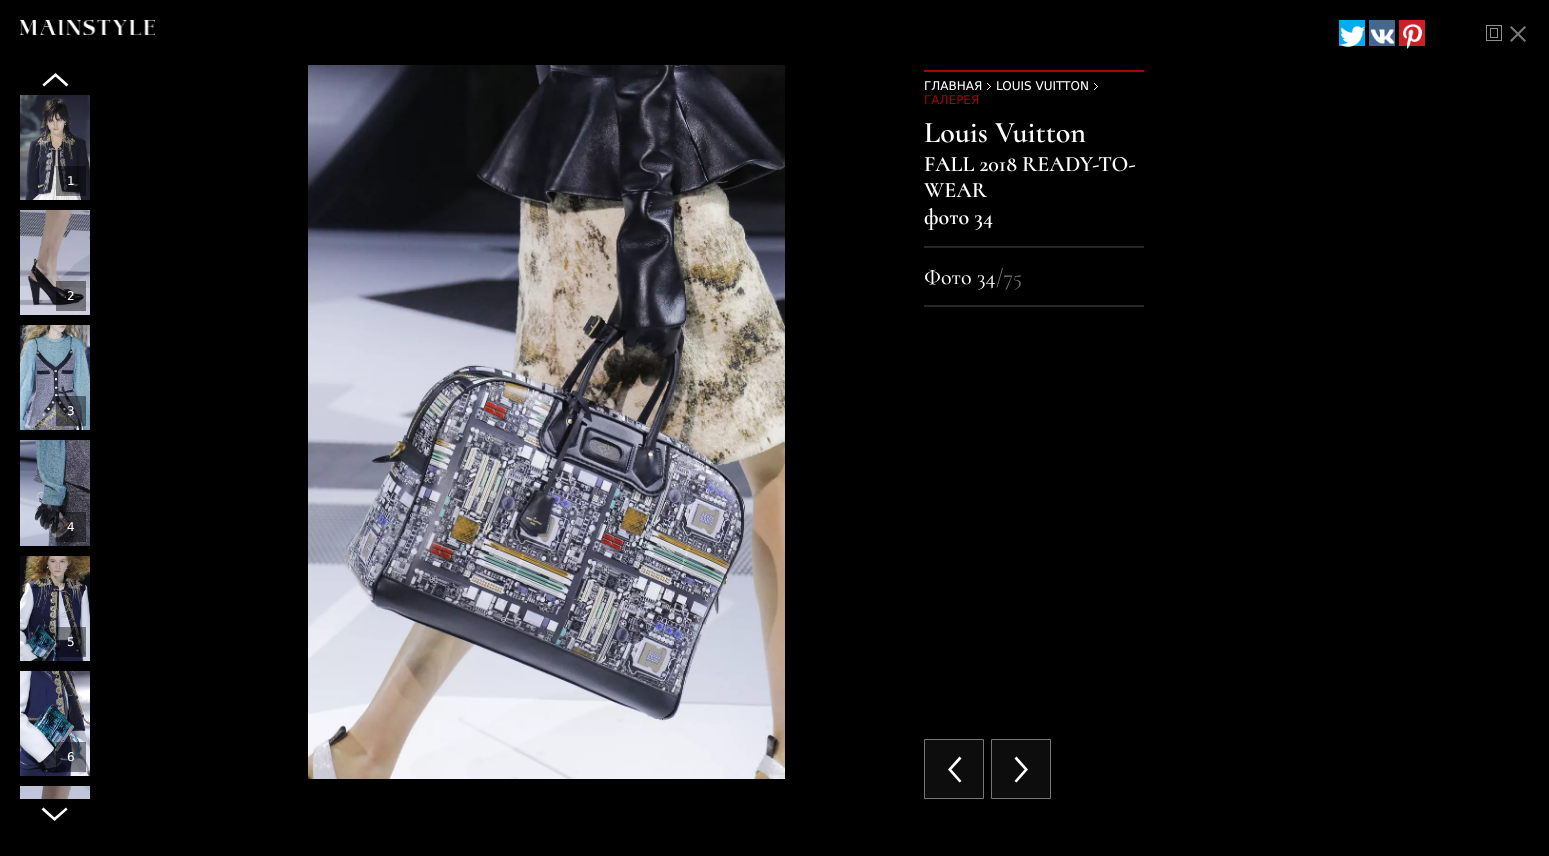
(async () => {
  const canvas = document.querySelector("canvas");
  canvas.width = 1549;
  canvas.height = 856;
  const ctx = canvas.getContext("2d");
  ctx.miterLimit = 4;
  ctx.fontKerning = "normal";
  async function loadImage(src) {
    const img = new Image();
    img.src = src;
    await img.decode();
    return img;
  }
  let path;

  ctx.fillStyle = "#000000";
  ctx.fillRect(0, 0, 1549, 856);
  ctx.fillStyle = "#00aced";
  ctx.fillRect(1339, 20, 26, 26);
  ctx.drawImage(await loadImage("img/1.png"), 1340, 26, 25, 21);
  ctx.fillStyle = "#45668e";
  ctx.fillRect(1369, 20, 26, 26);
  ctx.drawImage(await loadImage("img/2.png"), 1370, 29, 25, 15);
  ctx.fillStyle = "#cb2027";
  ctx.fillRect(1399, 20, 26, 26);
  ctx.drawImage(await loadImage("img/3.png"), 1403, 24, 19, 25);
  ctx.strokeStyle = "#8e8e8e";
  ctx.strokeRect(1486.5, 25.5, 15, 15);
  ctx.strokeRect(1490.5, 28.5, 7, 9);
  ctx.fillStyle = "#787878";
  path = new Path2D("M1511.5 26L1526 40.5L1524.5 42L1510 27.5Z");
  ctx.fill(path);
  path = new Path2D("M1510 40.5L1524.5 26L1526 27.5L1511.5 42Z");
  ctx.fill(path);
  ctx.drawImage(await loadImage("img/4.png"), 20, 20, 135, 15);
  ctx.fillStyle = "#ffffff";
  path = new Path2D("M42.5 84.5L55.5 73L68.5 84.5L66.5 86.5L55.5 76.5L44 86.5Z");
  ctx.fill(path);
  path = new Path2D("M67.5 809.5L54.5 821L41.5 809.5L43.5 807.5L54.5 817.5L66 807.5Z");
  ctx.fill(path);
  ctx.drawImage(await loadImage("img/5.png"), 20, 95, 70, 105);
  ctx.fillStyle = "rgba(0, 0, 0, 0.44)";
  ctx.fillRect(56, 166, 30, 30);
  ctx.drawImage(await loadImage("img/6.png"), 20, 210, 70, 105);
  ctx.fillRect(56, 281, 30, 30);
  ctx.drawImage(await loadImage("img/7.png"), 20, 325, 70, 105);
  ctx.fillRect(56, 396, 30, 30);
  ctx.drawImage(await loadImage("img/8.png"), 20, 440, 70, 106);
  ctx.fillRect(56, 512, 30, 30);
  ctx.drawImage(await loadImage("img/9.png"), 20, 556, 70, 105);
  ctx.fillRect(56, 627, 30, 30);
  ctx.drawImage(await loadImage("img/10.png"), 20, 671, 70, 105);
  ctx.fillRect(56, 742, 30, 30);
  ctx.drawImage(await loadImage("img/11.png"), 20, 786, 70, 13);
  ctx.drawImage(await loadImage("img/12.png"), 308, 65, 477, 714);
  ctx.fillStyle = "#a60505";
  ctx.fillRect(924, 70, 220, 2);
  ctx.drawImage(await loadImage("img/13.png"), 987, 83, 4, 7);
  ctx.drawImage(await loadImage("img/13.png"), 1094, 83, 4, 7);
  ctx.fillStyle = "#262626";
  ctx.fillRect(924, 246, 220, 2);
  ctx.fillRect(924, 305, 220, 2);
  ctx.fillStyle = "#0d0d0d";
  ctx.beginPath();
  ctx.rect(924.5, 739.5, 59, 59);
  ctx.fill();
  ctx.strokeStyle = "#777777";
  ctx.stroke();
  ctx.fillStyle = "#ffffff";
  path = new Path2D("M959.5 782.5L948 769.5L959.5 756.5L961.5 758.5L951.5 769.5L961.5 781Z");
  ctx.fill(path);
  ctx.fillStyle = "#0d0d0d";
  ctx.beginPath();
  ctx.rect(991.5, 739.5, 59, 59);
  ctx.fill();
  ctx.stroke();
  ctx.fillStyle = "#ffffff";
  path = new Path2D("M1016.5 782.5L1028 769.5L1016.5 756.5L1014.5 758.5L1024.5 769.5L1014.5 781Z");
  ctx.fill(path);
  ctx.font = "12px DejaVu Sans";
  for (const [text, x, y] of [
    ["1", 67, 185],
    ["2", 67, 300],
    ["3", 67, 415],
    ["4", 67, 531],
    ["5", 67, 646],
    ["6", 67, 761],
    ["ГЛАВНАЯ", 924, 90],
    ["LOUIS VUITTON", 996, 90],
  ]) {
    ctx.fillText(text, x, y);
  }
  ctx.fillStyle = "#a60505";
  ctx.fillText("ГАЛЕРЕЯ", 924, 104);
  ctx.font = "600 30px Cormorant Garamond";
  ctx.fillStyle = "#ffffff";
  ctx.fillText("Louis Vuitton", 924, 142);
  ctx.font = "600 22px Cormorant Garamond";
  for (const [text, x, y] of [
    ["FALL 2018 READY-TO-", 924, 171],
    ["WEAR", 924, 197],
    ["фото 34", 924, 224],
  ]) {
    ctx.fillText(text, x, y);
  }
  ctx.font = "500 22px Cormorant Garamond";
  ctx.fillText("Фото", 924, 284);
  ctx.font = "22px Cormorant Garamond";
  ctx.fillText("34", 977, 284);
  ctx.fillStyle = "#777777";
  ctx.fillText("/75", 996, 284);
})();
